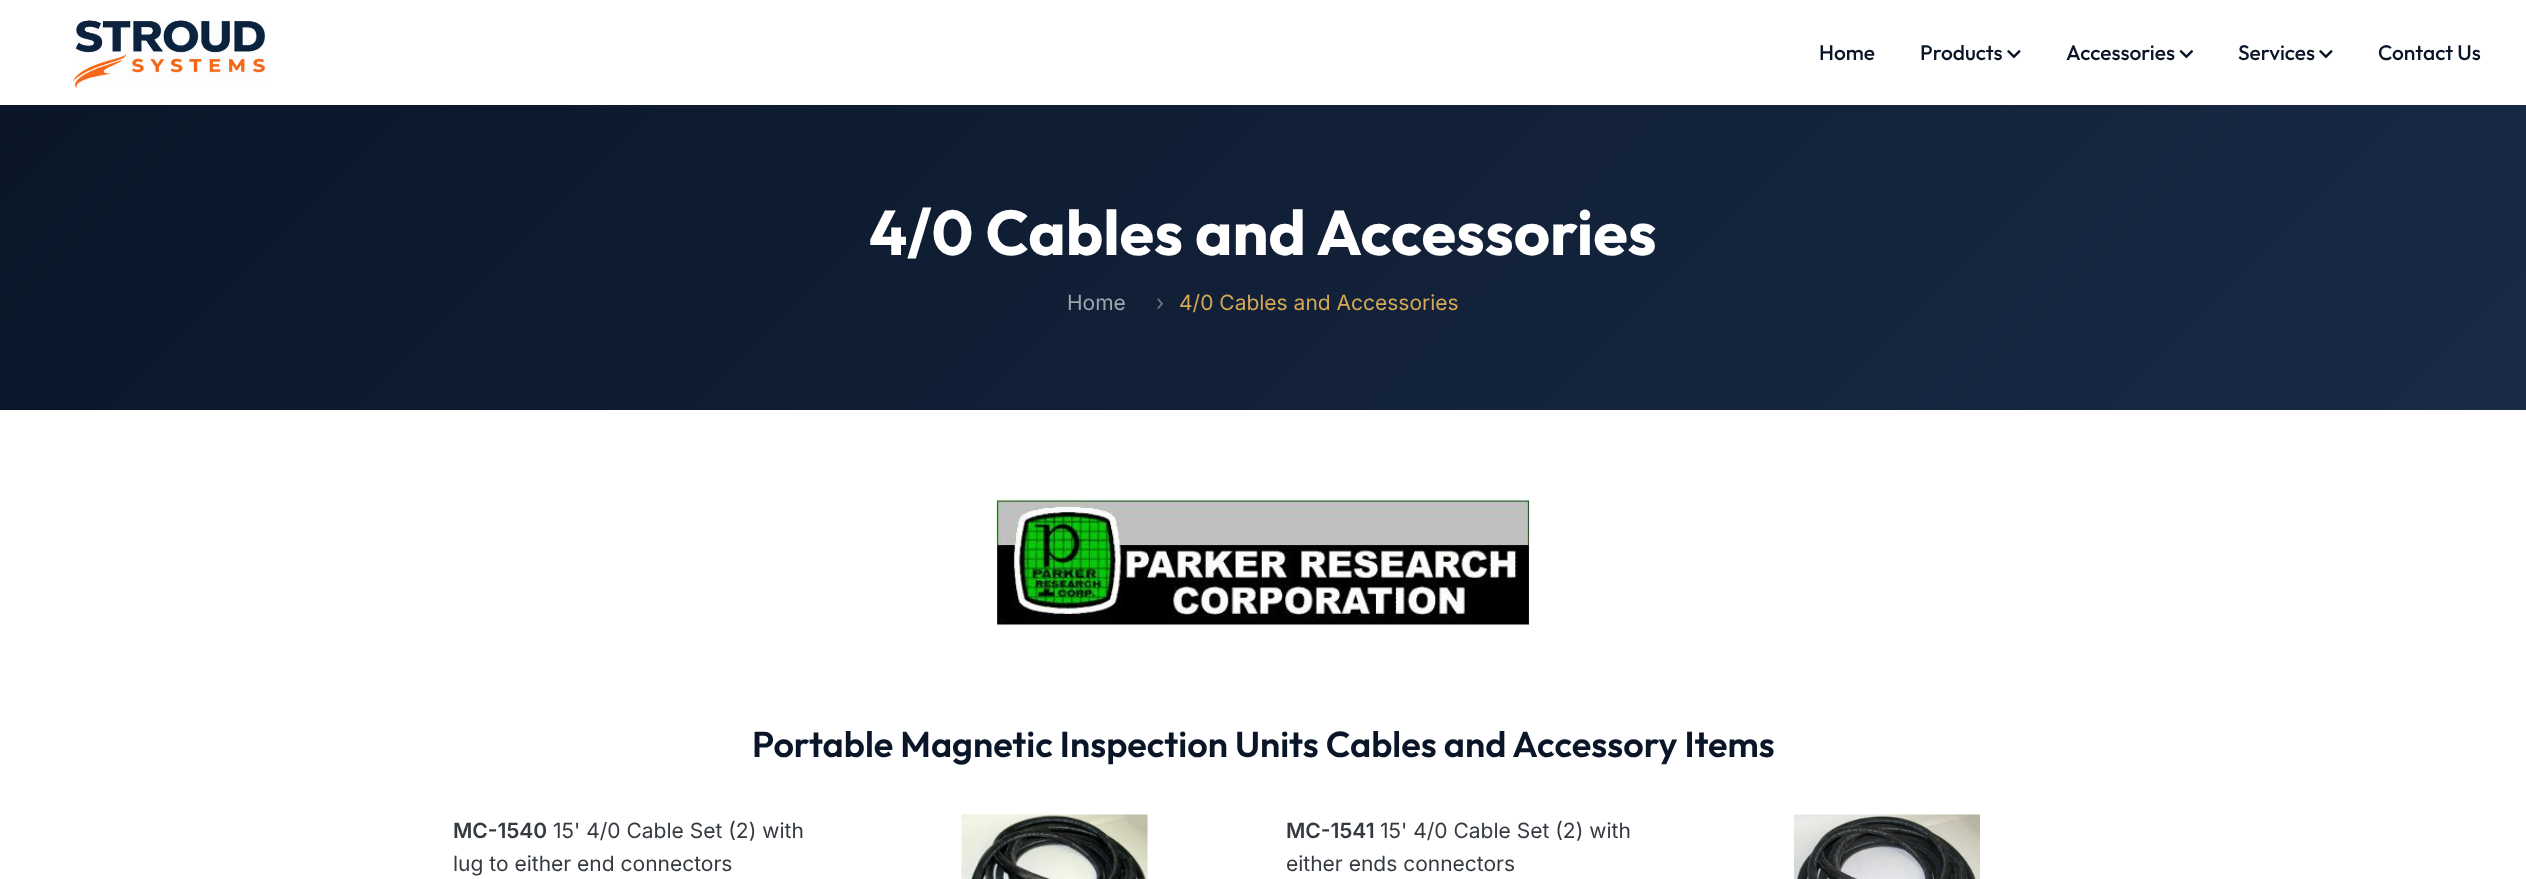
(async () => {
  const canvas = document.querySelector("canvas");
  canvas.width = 2526;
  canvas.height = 879;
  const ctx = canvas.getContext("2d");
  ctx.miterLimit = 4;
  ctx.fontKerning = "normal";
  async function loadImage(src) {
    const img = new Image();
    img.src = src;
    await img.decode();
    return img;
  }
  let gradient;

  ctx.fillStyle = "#ffffff";
  ctx.fillRect(0, 0, 2526, 879);
  ctx.drawImage(await loadImage("img/1.png"), 73, 20, 193, 68);
  ctx.drawImage(await loadImage("img/2.png"), 2007, 50, 14, 9);
  ctx.drawImage(await loadImage("img/3.png"), 2179, 50, 15, 9);
  ctx.drawImage(await loadImage("img/2.png"), 2319, 50, 14, 9);
  gradient = ctx.createLinearGradient(555, -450, 1971, 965);
  gradient.addColorStop(0, "#0a1628");
  gradient.addColorStop(1, "#182a46");
  ctx.fillStyle = gradient;
  ctx.fillRect(0, 105, 2526, 305);
  ctx.drawImage(await loadImage("img/4.png"), 996, 499, 534, 127);
  ctx.drawImage(await loadImage("img/5.png"), 961, 814, 187, 65);
  ctx.drawImage(await loadImage("img/6.png"), 1794, 814, 186, 65);
  ctx.font = "500 21px Outfit";
  ctx.fillStyle = "#0a1628";
  for (const [text, x, y] of [
    ["Home", 1819, 60],
    ["Products", 1920, 60],
    ["Accessories", 2066, 60],
    ["Services", 2238, 60],
    ["Contact Us", 2378, 60],
  ]) {
    ctx.fillText(text, x, y);
  }
  ctx.font = "bold 63px Outfit";
  ctx.fillStyle = "#ffffff";
  ctx.fillText("4/0 Cables and Accessories", 869, 255);
  ctx.font = "21px Inter";
  ctx.fillStyle = "#9fa5af";
  ctx.fillText("Home", 1067, 310);
  ctx.fillStyle = "#707986";
  ctx.fillText("›", 1156, 310);
  ctx.fillStyle = "#d4a855";
  ctx.fillText("4/0 Cables and Accessories", 1179, 310);
  ctx.font = "600 36px Outfit";
  ctx.fillStyle = "#0a1628";
  ctx.fillText("Portable Magnetic Inspection Units Cables and Accessory Items", 752, 757);
  ctx.font = "600 21px Inter";
  ctx.fillStyle = "#343a40";
  ctx.fillText("MC-1540", 453, 838);
  ctx.font = "21px Inter";
  ctx.fillText("15' 4/0 Cable Set (2) with", 553, 838);
  ctx.fillText("lug to either end connectors", 453, 871);
  ctx.font = "600 21px Inter";
  ctx.fillText("MC-1541", 1286, 838);
  ctx.font = "21px Inter";
  ctx.fillText("15' 4/0 Cable Set (2) with", 1380, 838);
  ctx.fillText("either ends connectors", 1286, 871);
})();
